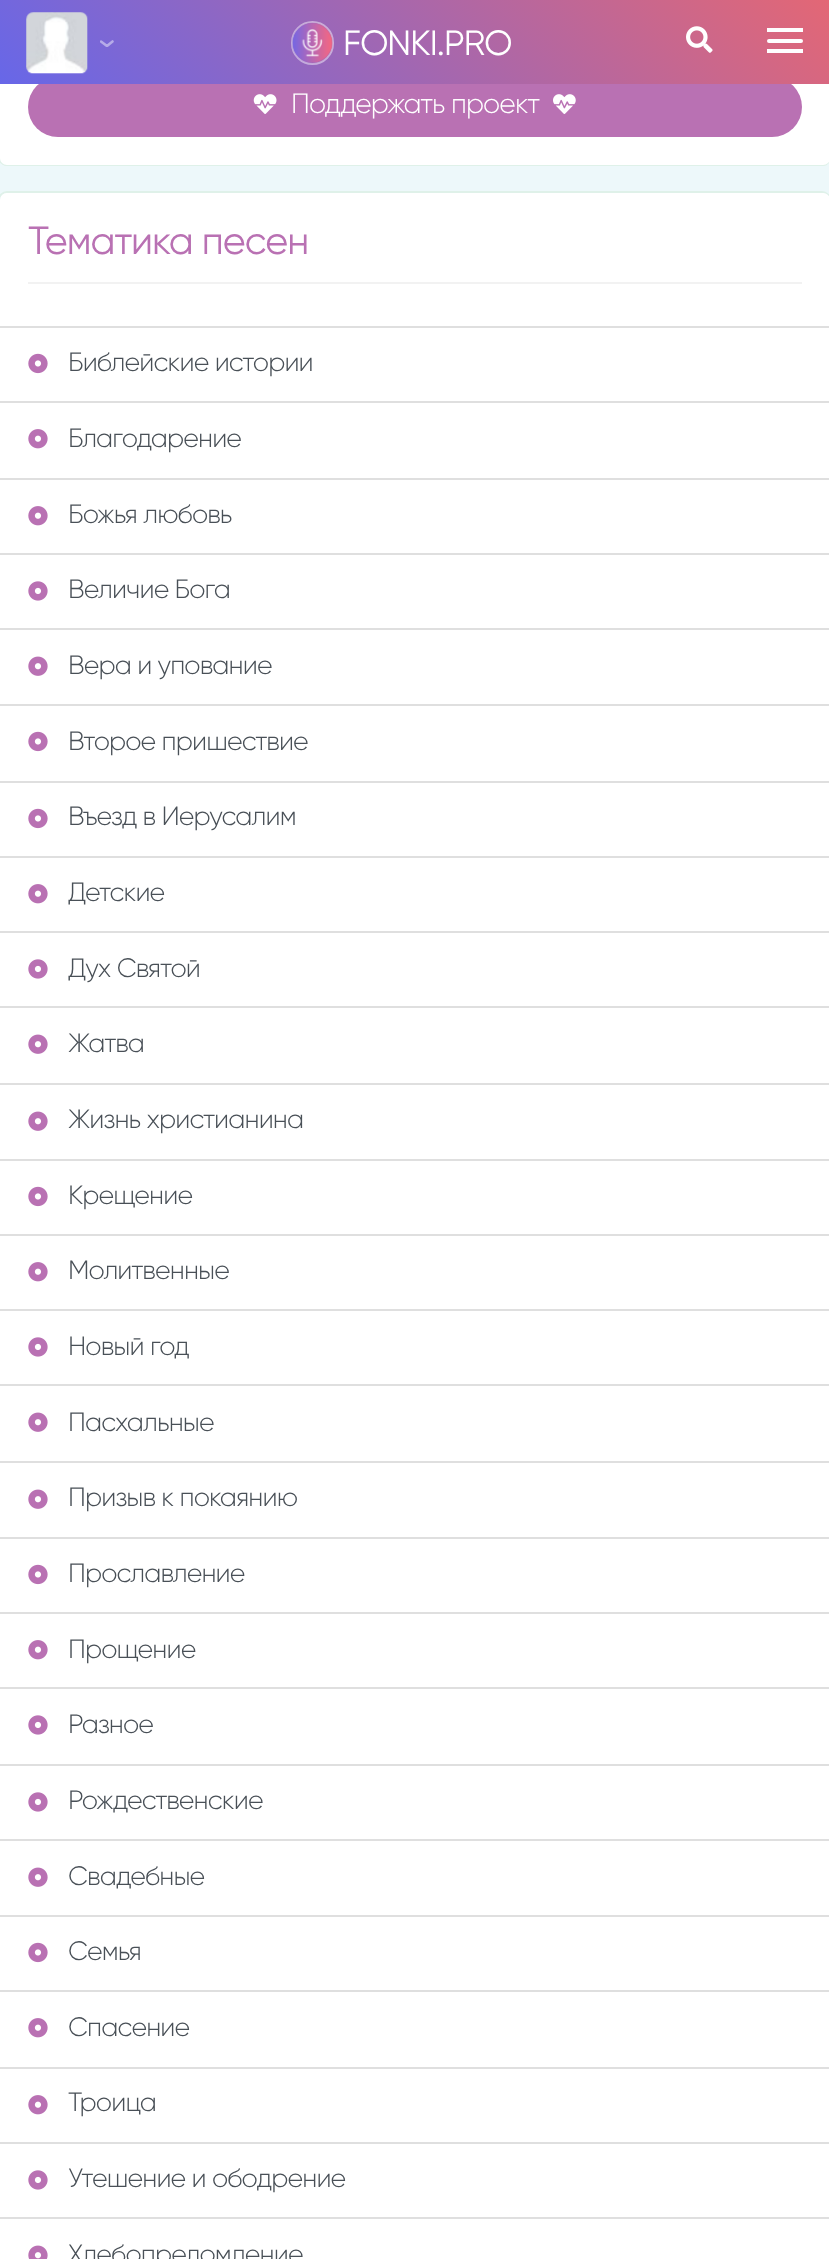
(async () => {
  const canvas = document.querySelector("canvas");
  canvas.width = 829;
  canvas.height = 2259;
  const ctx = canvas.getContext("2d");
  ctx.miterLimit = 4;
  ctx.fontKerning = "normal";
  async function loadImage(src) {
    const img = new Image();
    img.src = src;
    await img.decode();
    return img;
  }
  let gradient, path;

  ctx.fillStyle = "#edf8fa";
  ctx.fillRect(0, 0, 829, 2259);
  ctx.beginPath();
  ctx.roundRect(-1, -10, 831, 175, 8);
  ctx.strokeStyle = "#dff1e9";
  ctx.lineWidth = 2;
  ctx.stroke();
  ctx.fillStyle = "#dff1e9";
  path = new Path2D("M0 158V159C0 163 3 166 7 166H823C827 166 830 163 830 159V-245L829-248L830 158C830 161 826 164 822 164H7C3 164 0 161 0 158Z");
  ctx.fill(path);
  ctx.fillStyle = "#ffffff";
  ctx.beginPath();
  ctx.roundRect(0, -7, 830, 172, 7);
  ctx.fill();
  ctx.fillStyle = "#b971b3";
  ctx.beginPath();
  ctx.roundRect(28, 77, 774, 60, 30);
  ctx.fill();
  gradient = ctx.createLinearGradient(186, 270, 643, -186);
  gradient.addColorStop(0, "#6767e8");
  gradient.addColorStop(1, "#e36775");
  ctx.fillStyle = gradient;
  ctx.fillRect(0, 0, 829, 84);
  ctx.drawImage(await loadImage("img/1.png"), 26, 12, 62, 62);
  ctx.save();
  ctx.beginPath();
  ctx.rect(100, 40, 14, 7);
  ctx.clip();
  path = new Path2D("M101 41.5L107 46L112.5 41.5");
  ctx.strokeStyle = "#b6abe8";
  ctx.lineWidth = 2.6;
  ctx.lineCap = "round";
  ctx.lineJoin = "round";
  ctx.stroke(path);
  ctx.restore();
  ctx.beginPath();
  ctx.roundRect(292, 22, 41, 42, 20.5);
  ctx.strokeStyle = "rgba(255, 255, 255, 0.46)";
  ctx.stroke();
  ctx.drawImage(await loadImage("img/2.png"), 291, 22, 42, 42);
  ctx.drawImage(await loadImage("img/3.png"), 686, 26, 27, 27);
  ctx.fillStyle = "#fefeff";
  ctx.fillRect(767, 28, 36, 4);
  ctx.beginPath();
  ctx.roundRect(767, 39, 36, 4, 2);
  ctx.fill();
  ctx.fillRect(767, 49, 36, 4);
  ctx.drawImage(await loadImage("img/4.png"), 253, 94, 24, 20);
  ctx.drawImage(await loadImage("img/5.png"), 553, 94, 23, 20);
  ctx.beginPath();
  ctx.roundRect(-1, 192, 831, 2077, 8);
  ctx.strokeStyle = "#dff1e9";
  ctx.stroke();
  ctx.fillStyle = "#ffffff";
  ctx.beginPath();
  ctx.roundRect(0, 193, 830, 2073, 7);
  ctx.fill();
  ctx.fillStyle = "#f2f2f2";
  ctx.fillRect(28, 282, 774, 2);
  ctx.fillStyle = "#dfdfdf";
  ctx.fillRect(0, 326, 829, 2);
  ctx.drawImage(await loadImage("img/6.png"), 28, 353, 20, 21);
  ctx.fillRect(0, 401, 829, 2);
  ctx.drawImage(await loadImage("img/7.png"), 28, 429, 20, 20);
  ctx.fillRect(0, 478, 829, 2);
  ctx.drawImage(await loadImage("img/7.png"), 28, 506, 20, 20);
  ctx.fillRect(0, 553, 829, 2);
  ctx.drawImage(await loadImage("img/8.png"), 28, 581, 20, 20);
  ctx.fillRect(0, 628, 829, 2);
  ctx.drawImage(await loadImage("img/9.png"), 28, 656, 20, 20);
  ctx.fillRect(0, 704, 829, 2);
  ctx.drawImage(await loadImage("img/6.png"), 28, 731, 20, 21);
  ctx.fillRect(0, 781, 829, 2);
  ctx.drawImage(await loadImage("img/6.png"), 28, 808, 20, 21);
  ctx.fillRect(0, 856, 829, 2);
  ctx.drawImage(await loadImage("img/7.png"), 28, 884, 20, 20);
  ctx.fillRect(0, 931, 829, 2);
  ctx.drawImage(await loadImage("img/8.png"), 28, 959, 20, 20);
  ctx.fillRect(0, 1006, 829, 2);
  ctx.drawImage(await loadImage("img/9.png"), 28, 1034, 20, 20);
  ctx.fillRect(0, 1083, 829, 2);
  ctx.drawImage(await loadImage("img/9.png"), 28, 1111, 20, 20);
  ctx.fillRect(0, 1159, 829, 2);
  ctx.drawImage(await loadImage("img/6.png"), 28, 1186, 20, 21);
  ctx.fillRect(0, 1234, 829, 2);
  ctx.drawImage(await loadImage("img/7.png"), 28, 1262, 20, 20);
  ctx.fillRect(0, 1309, 829, 2);
  ctx.drawImage(await loadImage("img/8.png"), 28, 1337, 20, 20);
  ctx.fillRect(0, 1384, 829, 2);
  ctx.drawImage(await loadImage("img/9.png"), 28, 1412, 20, 20);
  ctx.fillRect(0, 1461, 829, 2);
  ctx.drawImage(await loadImage("img/9.png"), 28, 1489, 20, 20);
  ctx.fillRect(0, 1537, 829, 2);
  ctx.drawImage(await loadImage("img/6.png"), 28, 1564, 20, 21);
  ctx.fillRect(0, 1612, 829, 2);
  ctx.drawImage(await loadImage("img/7.png"), 28, 1640, 20, 20);
  ctx.fillRect(0, 1687, 829, 2);
  ctx.drawImage(await loadImage("img/8.png"), 28, 1715, 20, 20);
  ctx.fillRect(0, 1764, 829, 2);
  ctx.drawImage(await loadImage("img/8.png"), 28, 1792, 20, 20);
  ctx.fillRect(0, 1839, 829, 2);
  ctx.drawImage(await loadImage("img/9.png"), 28, 1867, 20, 20);
  ctx.fillRect(0, 1915, 829, 2);
  ctx.drawImage(await loadImage("img/6.png"), 28, 1942, 20, 21);
  ctx.fillRect(0, 1990, 829, 2);
  ctx.drawImage(await loadImage("img/7.png"), 28, 2018, 20, 20);
  ctx.fillRect(0, 2067, 829, 2);
  ctx.drawImage(await loadImage("img/7.png"), 28, 2095, 20, 20);
  ctx.fillRect(0, 2142, 829, 2);
  ctx.drawImage(await loadImage("img/8.png"), 28, 2170, 20, 20);
  ctx.fillRect(0, 2217, 829, 2);
  ctx.drawImage(await loadImage("img/10.png"), 28, 2245, 20, 14);
  ctx.letterSpacing = "-0.9px";
  ctx.font = "35px Gilroy";
  ctx.fillStyle = "#ffffff";
  ctx.fillText("FONKI.PRO", 343, 55);
  ctx.font = "300 28px Gilroy";
  ctx.fillText("Поддержать проект", 291, 113);
  ctx.font = "39.25px Gilroy";
  ctx.fillStyle = "#b971b3";
  ctx.fillText("Тематика песен", 28, 254);
  ctx.font = "300 26.6px Gilroy";
  ctx.fillStyle = "#495057";
  for (const [text, x, y] of [
    ["Библейские истории", 68, 371],
    ["Благодарение", 68, 447],
    ["Божья любовь", 68, 523],
    ["Величие Бога", 68, 598],
    ["Вера и упование", 68, 674],
    ["Второе пришествие", 68, 750],
    ["Въезд в Иерусалим", 68, 825],
    ["Детские", 68, 901],
    ["Дух Святой", 68, 977],
    ["Жатва", 68, 1052],
    ["Жизнь христианина", 68, 1128],
    ["Крещение", 68, 1204],
    ["Молитвенные", 68, 1279],
    ["Новый год", 68, 1355],
    ["Пасхальные", 68, 1431],
    ["Призыв к покаянию", 68, 1506],
    ["Прославление", 68, 1582],
    ["Прощение", 68, 1658],
    ["Разное", 68, 1733],
    ["Рождественские", 68, 1809],
    ["Свадебные", 68, 1885],
    ["Семья", 68, 1960],
    ["Спасение", 68, 2036],
    ["Троица", 68, 2111],
    ["Утешение и ободрение", 68, 2187],
    ["Хлебопреломление", 68, 2263],
  ]) {
    ctx.fillText(text, x, y);
  }
})();
